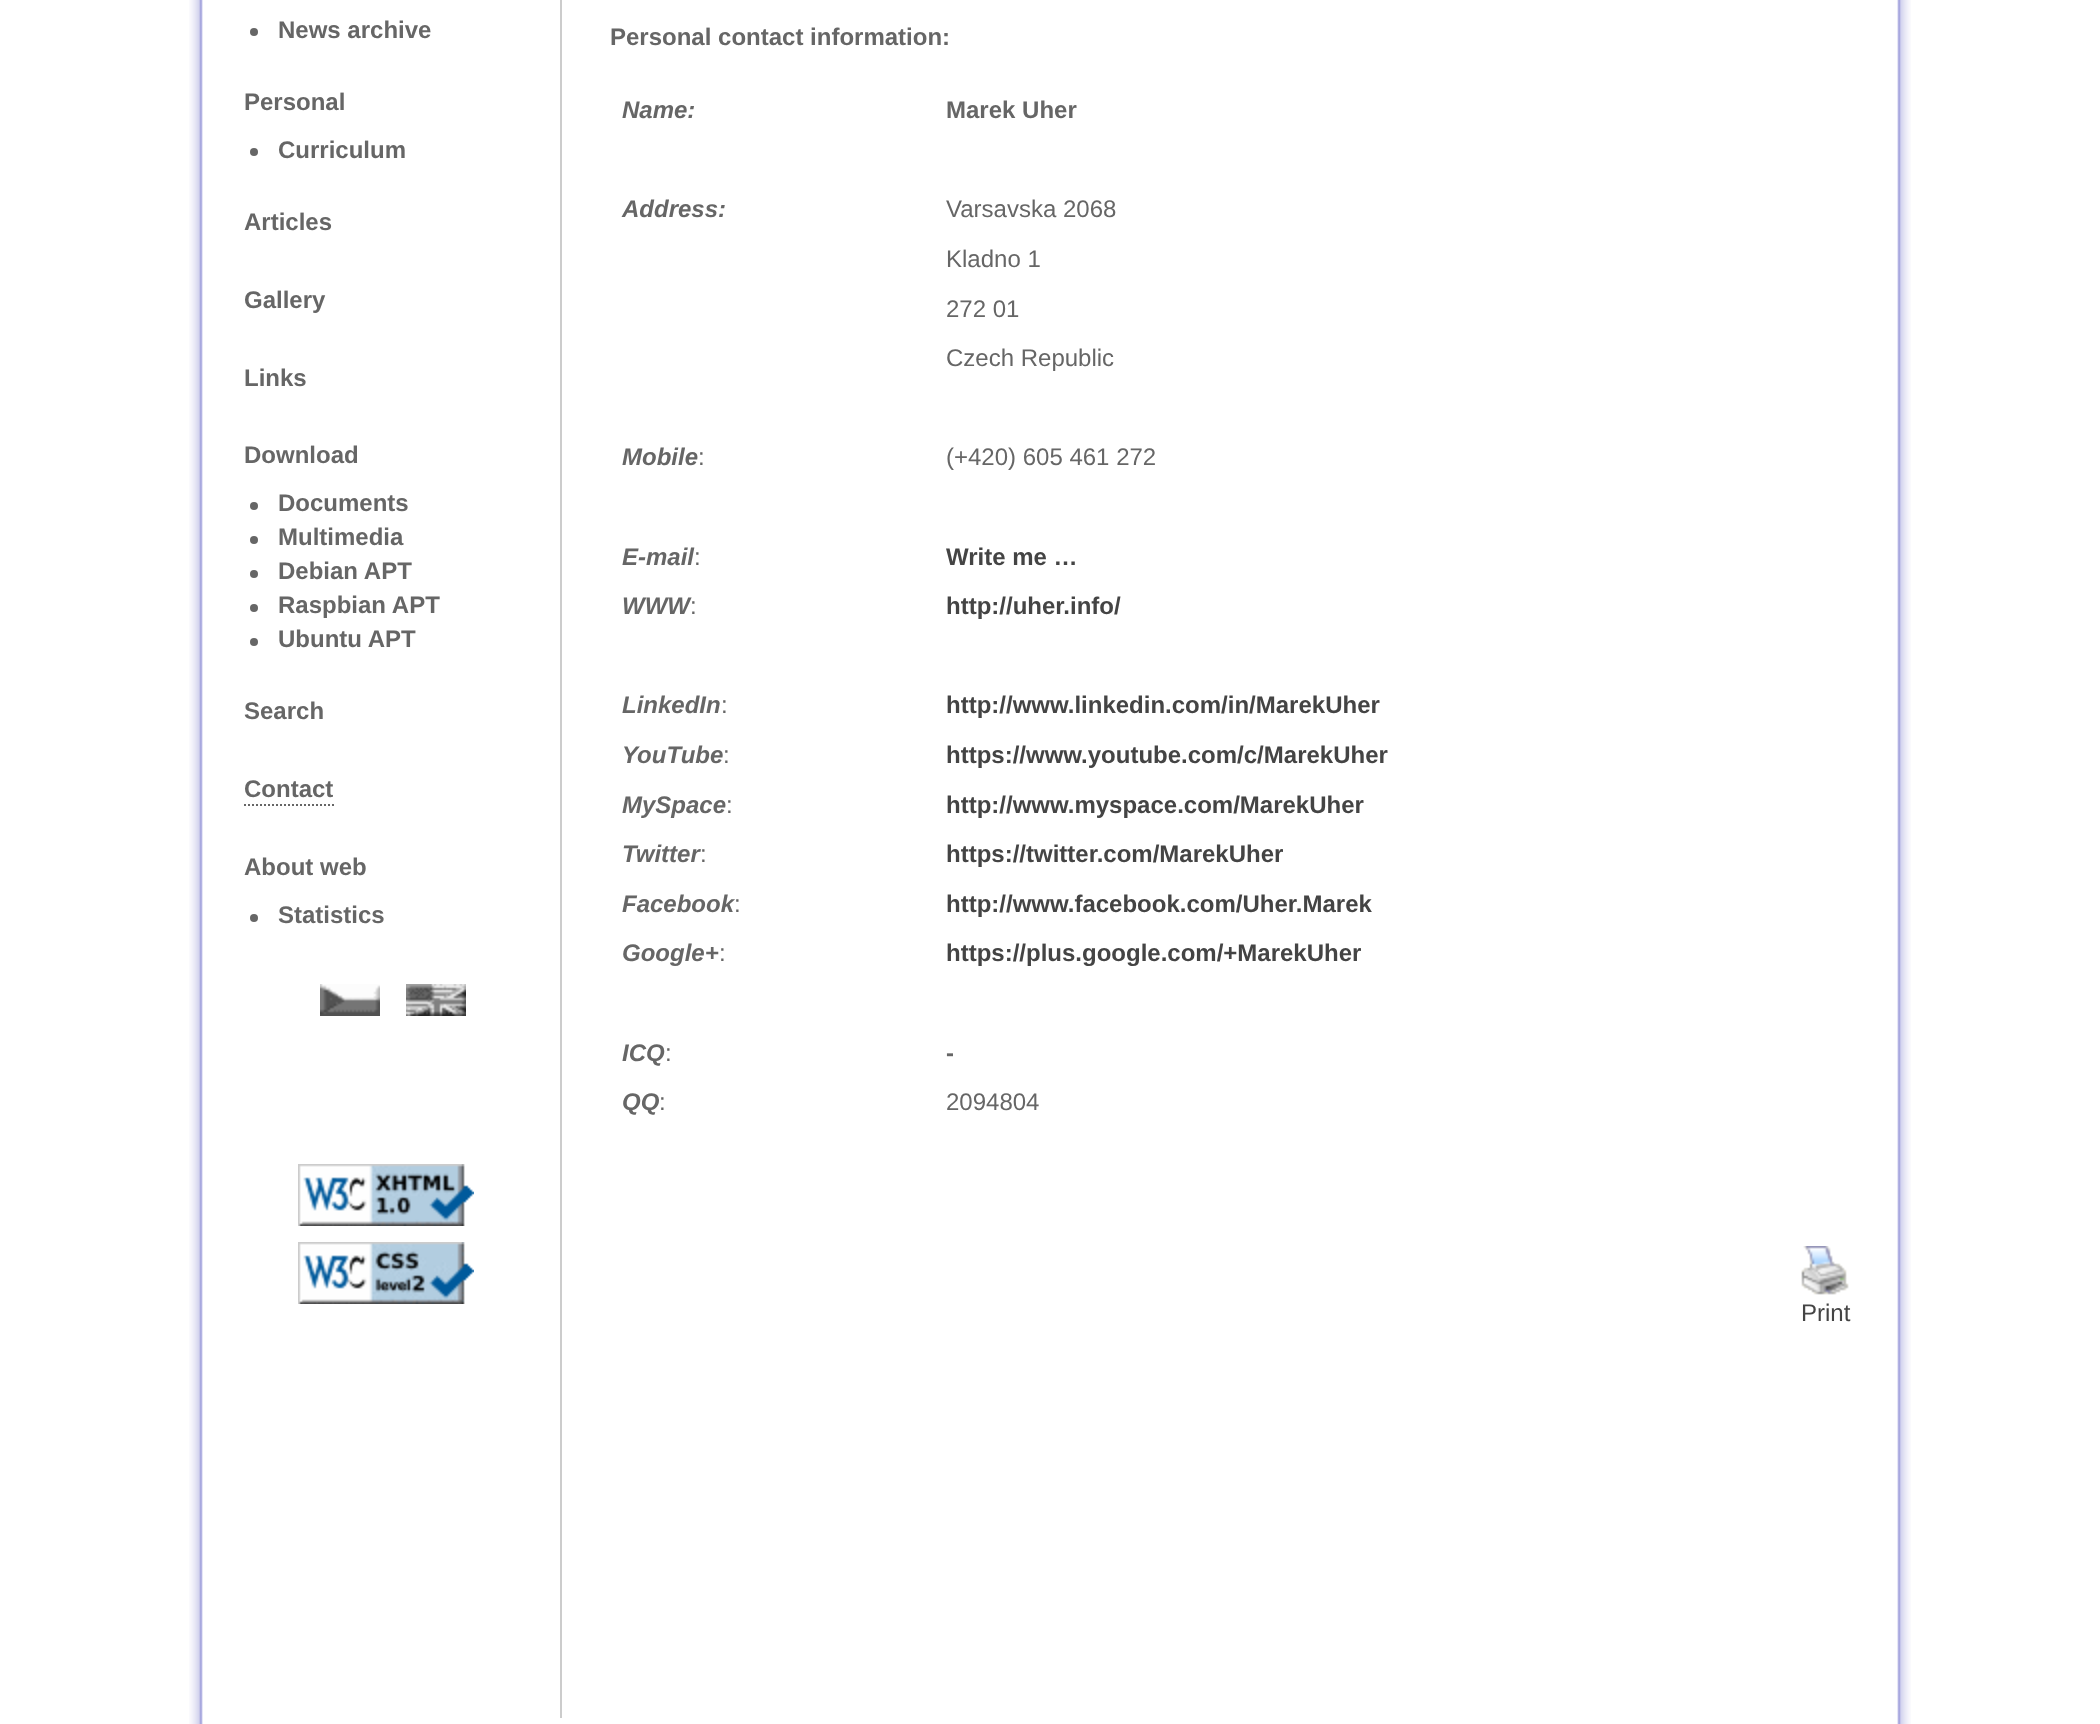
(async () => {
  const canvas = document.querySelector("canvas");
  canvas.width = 2100;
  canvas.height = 1724;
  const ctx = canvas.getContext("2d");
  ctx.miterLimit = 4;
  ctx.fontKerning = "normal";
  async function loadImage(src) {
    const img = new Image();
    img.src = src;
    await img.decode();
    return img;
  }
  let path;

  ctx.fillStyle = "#ffffff";
  ctx.fillRect(0, 0, 2100, 1724);
  ctx.drawImage(await loadImage("img/1.png"), 189, 0, 1722, 1724);
  ctx.fillStyle = "#cccccc";
  ctx.fillRect(560, 0, 2, 1718);
  ctx.fillStyle = "#666666";
  ctx.beginPath();
  ctx.arc(254, 32, 4, 0, Math.PI * 2);
  ctx.fill();
  ctx.beginPath();
  ctx.arc(254, 152, 4, 0, Math.PI * 2);
  ctx.fill();
  ctx.beginPath();
  ctx.arc(254, 506, 4, 0, Math.PI * 2);
  ctx.fill();
  ctx.beginPath();
  ctx.arc(254, 540, 4, 0, Math.PI * 2);
  ctx.fill();
  ctx.beginPath();
  ctx.arc(254, 574, 4, 0, Math.PI * 2);
  ctx.fill();
  ctx.beginPath();
  ctx.arc(254, 608, 4, 0, Math.PI * 2);
  ctx.fill();
  ctx.beginPath();
  ctx.arc(254, 642, 4, 0, Math.PI * 2);
  ctx.fill();
  path = new Path2D("M244 805H334");
  ctx.strokeStyle = "#666666";
  ctx.lineWidth = 2;
  ctx.setLineDash([2, 2]);
  ctx.stroke(path);
  ctx.beginPath();
  ctx.arc(254, 918, 4, 0, Math.PI * 2);
  ctx.fill();
  ctx.drawImage(await loadImage("img/2.png"), 320, 984, 60, 32);
  ctx.drawImage(await loadImage("img/3.png"), 406, 984, 60, 32);
  ctx.drawImage(await loadImage("img/4.png"), 298, 1164, 176, 62);
  ctx.drawImage(await loadImage("img/5.png"), 298, 1242, 176, 62);
  ctx.drawImage(await loadImage("img/6.png"), 1801, 1246, 48, 49);
  ctx.font = "bold 24px Liberation Sans";
  for (const [text, x, y] of [
    ["News archive", 278, 38],
    ["Personal", 244, 110],
    ["Curriculum", 278, 158],
    ["Articles", 244, 230],
    ["Gallery", 244, 308],
    ["Links", 244, 386],
    ["Download", 244, 463],
    ["Documents", 278, 511],
    ["Multimedia", 278, 545],
    ["Debian APT", 278, 579],
    ["Raspbian APT", 278, 613],
    ["Ubuntu APT", 278, 647],
    ["Search", 244, 719],
    ["Contact", 244, 797],
    ["About web", 244, 875],
    ["Statistics", 278, 923],
    ["Personal contact information:", 610, 45],
  ]) {
    ctx.fillText(text, x, y);
  }
  ctx.font = "italic bold 24px Liberation Sans";
  ctx.fillText("Name:", 622, 118);
  ctx.font = "bold 24px Liberation Sans";
  ctx.fillText("Marek Uher", 946, 118);
  ctx.font = "italic bold 24px Liberation Sans";
  ctx.fillText("Address:", 622, 217);
  ctx.font = "24px Liberation Sans";
  for (const [text, x, y] of [
    ["Varsavska 2068", 946, 217],
    ["Kladno 1", 946, 267],
    ["272 01", 946, 317],
    ["Czech Republic", 946, 366],
  ]) {
    ctx.fillText(text, x, y);
  }
  ctx.font = "italic bold 24px Liberation Sans";
  ctx.fillText("Mobile", 622, 465);
  ctx.font = "24px Liberation Sans";
  ctx.fillText(":", 698, 465);
  ctx.fillText("(+420) 605 461 272", 946, 465);
  ctx.font = "italic bold 24px Liberation Sans";
  ctx.fillText("E-mail", 622, 565);
  ctx.font = "24px Liberation Sans";
  ctx.fillText(":", 694, 565);
  ctx.font = "bold 24px Liberation Sans";
  ctx.fillStyle = "#444444";
  ctx.fillText("Write me …", 946, 565);
  ctx.font = "italic bold 24px Liberation Sans";
  ctx.fillStyle = "#666666";
  ctx.fillText("WWW", 622, 614);
  ctx.font = "24px Liberation Sans";
  ctx.fillText(":", 690, 614);
  ctx.font = "bold 24px Liberation Sans";
  ctx.fillStyle = "#444444";
  ctx.fillText("http://uher.info/", 946, 614);
  ctx.font = "italic bold 24px Liberation Sans";
  ctx.fillStyle = "#666666";
  ctx.fillText("LinkedIn", 622, 713);
  ctx.font = "24px Liberation Sans";
  ctx.fillText(":", 721, 713);
  ctx.font = "bold 24px Liberation Sans";
  ctx.fillStyle = "#444444";
  ctx.fillText("http://www.linkedin.com/in/MarekUher", 946, 713);
  ctx.font = "italic bold 24px Liberation Sans";
  ctx.fillStyle = "#666666";
  ctx.fillText("YouTube", 622, 763);
  ctx.font = "24px Liberation Sans";
  ctx.fillText(":", 723, 763);
  ctx.font = "bold 24px Liberation Sans";
  ctx.fillStyle = "#444444";
  ctx.fillText("https://www.youtube.com/c/MarekUher", 946, 763);
  ctx.font = "italic bold 24px Liberation Sans";
  ctx.fillStyle = "#666666";
  ctx.fillText("MySpace", 622, 813);
  ctx.font = "24px Liberation Sans";
  ctx.fillText(":", 726, 813);
  ctx.font = "bold 24px Liberation Sans";
  ctx.fillStyle = "#444444";
  ctx.fillText("http://www.myspace.com/MarekUher", 946, 813);
  ctx.font = "italic bold 24px Liberation Sans";
  ctx.fillStyle = "#666666";
  ctx.fillText("Twitter", 622, 862);
  ctx.font = "24px Liberation Sans";
  ctx.fillText(":", 700, 862);
  ctx.font = "bold 24px Liberation Sans";
  ctx.fillStyle = "#444444";
  ctx.fillText("https://twitter.com/MarekUher", 946, 862);
  ctx.font = "italic bold 24px Liberation Sans";
  ctx.fillStyle = "#666666";
  ctx.fillText("Facebook", 622, 912);
  ctx.font = "24px Liberation Sans";
  ctx.fillText(":", 734, 912);
  ctx.font = "bold 24px Liberation Sans";
  ctx.fillStyle = "#444444";
  ctx.fillText("http://www.facebook.com/Uher.Marek", 946, 912);
  ctx.font = "italic bold 24px Liberation Sans";
  ctx.fillStyle = "#666666";
  ctx.fillText("Google+", 622, 961);
  ctx.font = "24px Liberation Sans";
  ctx.fillText(":", 719, 961);
  ctx.font = "bold 24px Liberation Sans";
  ctx.fillStyle = "#444444";
  ctx.fillText("https://plus.google.com/+MarekUher", 946, 961);
  ctx.font = "italic bold 24px Liberation Sans";
  ctx.fillStyle = "#666666";
  ctx.fillText("ICQ", 622, 1061);
  ctx.font = "24px Liberation Sans";
  ctx.fillText(":", 665, 1061);
  ctx.font = "bold 24px Liberation Sans";
  ctx.fillText("-", 946, 1061);
  ctx.font = "italic bold 24px Liberation Sans";
  ctx.fillText("QQ", 622, 1110);
  ctx.font = "24px Liberation Sans";
  ctx.fillText(":", 659, 1110);
  ctx.fillText("2094804", 946, 1110);
  ctx.fillStyle = "#444444";
  ctx.fillText("Print", 1801, 1321);
})();
